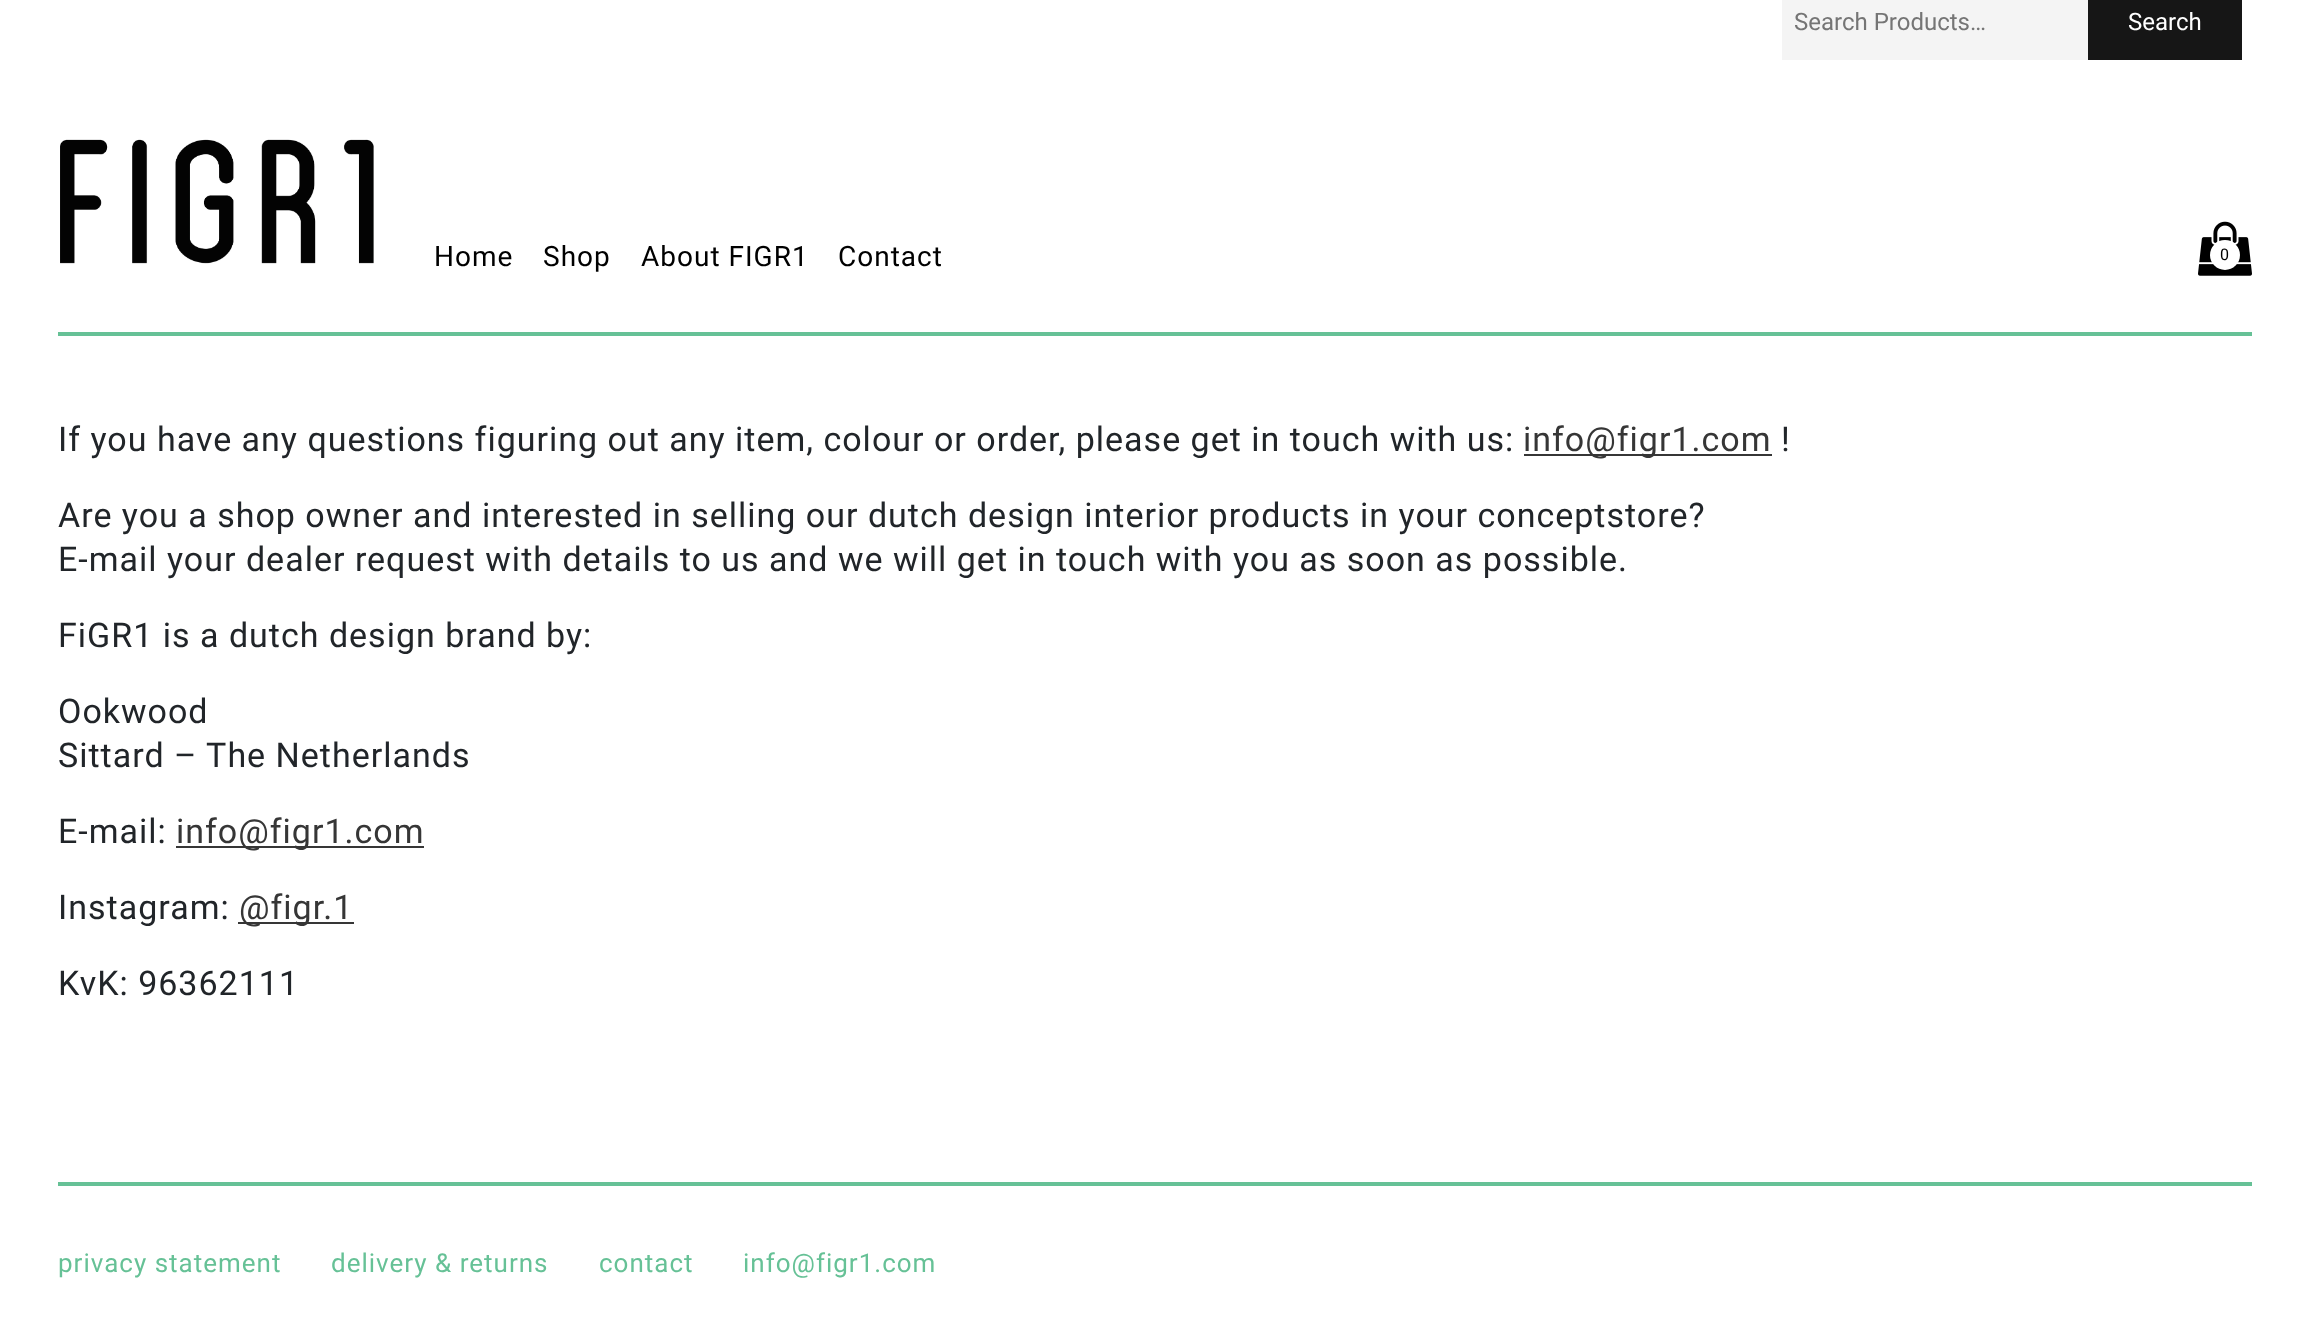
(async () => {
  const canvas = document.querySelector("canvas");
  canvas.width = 2310;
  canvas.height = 1335;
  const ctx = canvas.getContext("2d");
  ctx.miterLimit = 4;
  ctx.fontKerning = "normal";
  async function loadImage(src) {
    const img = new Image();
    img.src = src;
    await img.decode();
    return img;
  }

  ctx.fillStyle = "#ffffff";
  ctx.fillRect(0, 0, 2310, 1335);
  for (const [x, y, w, h, color] of [
    [58, 332, 2194, 4, "#66c196"],
    [1782, 0, 306, 60, "#f4f4f4"],
    [2088, 0, 154, 60, "#161616"],
  ]) {
    ctx.fillStyle = color;
    ctx.fillRect(x, y, w, h);
  }
  ctx.drawImage(await loadImage("img/1.png"), 60, 139, 314, 125);
  ctx.drawImage(await loadImage("img/2.png"), 2198, 221, 54, 55);
  ctx.fillStyle = "#ffffff";
  ctx.beginPath();
  ctx.arc(2225, 255, 15, 0, Math.PI * 2);
  ctx.fill();
  for (const [x, y, w, h, color] of [
    [1524, 454, 248, 2, "#363636"],
    [176, 846, 248, 2, "#363636"],
    [238, 922, 116, 2, "#363636"],
    [58, 1182, 2194, 4, "#66c196"],
  ]) {
    ctx.fillStyle = color;
    ctx.fillRect(x, y, w, h);
  }
  ctx.font = "24px Roboto";
  ctx.fillStyle = "#757575";
  ctx.fillText("Search Products…", 1794, 30);
  ctx.fillStyle = "#ffffff";
  ctx.fillText("Search", 2128, 30);
  ctx.letterSpacing = "1px";
  ctx.font = "28px Roboto";
  ctx.fillStyle = "#000000";
  for (const [text, x, y] of [
    ["Home", 434, 266],
    ["Shop", 543, 266],
    ["About FIGR1", 641, 266],
    ["Contact", 838, 266],
  ]) {
    ctx.fillText(text, x, y);
  }
  ctx.font = "16px Roboto";
  ctx.fillText("0", 2220, 260);
  ctx.font = "34px Roboto";
  ctx.fillStyle = "#212529";
  ctx.fillText("If you have any questions figuring out any item, colour or order, please get in touch with us:", 58, 451);
  ctx.fillStyle = "#363636";
  ctx.fillText("info@figr1.com", 1523, 451);
  ctx.fillStyle = "#212529";
  for (const [text, x, y] of [
    ["!", 1781, 451],
    ["Are you a shop owner and interested in selling our dutch design interior products in your conceptstore?", 58, 527],
    ["E-mail your dealer request with details to us and we will get in touch with you as soon as possible.", 58, 571],
    ["FiGR1 is a dutch design brand by:", 58, 647],
    ["Ookwood", 58, 723],
    ["Sittard – The Netherlands", 58, 767],
    ["E-mail:", 58, 843],
  ]) {
    ctx.fillText(text, x, y);
  }
  ctx.fillStyle = "#363636";
  ctx.fillText("info@figr1.com", 176, 843);
  ctx.fillStyle = "#212529";
  ctx.fillText("Instagram:", 58, 919);
  ctx.fillStyle = "#363636";
  ctx.fillText("@figr.1", 239, 919);
  ctx.fillStyle = "#212529";
  ctx.fillText("KvK: 96362111", 58, 995);
  ctx.font = "26px Roboto";
  ctx.fillStyle = "#66c196";
  for (const [text, x, y] of [
    ["privacy statement", 58, 1272],
    ["delivery & returns", 331, 1272],
    ["contact", 599, 1272],
    ["info@figr1.com", 743, 1272],
  ]) {
    ctx.fillText(text, x, y);
  }
})();
